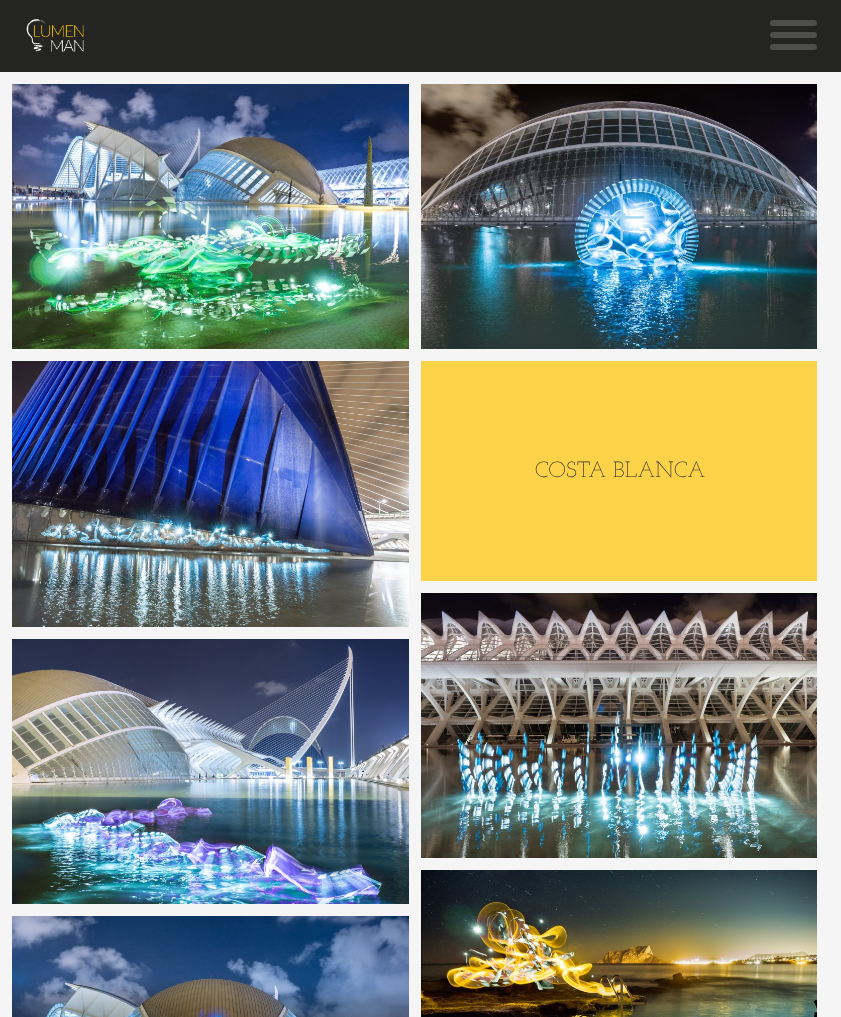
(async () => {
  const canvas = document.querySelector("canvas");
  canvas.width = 841;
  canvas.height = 1017;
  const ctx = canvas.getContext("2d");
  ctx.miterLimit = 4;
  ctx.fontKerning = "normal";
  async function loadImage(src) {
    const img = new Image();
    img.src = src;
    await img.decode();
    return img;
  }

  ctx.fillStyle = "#242423";
  ctx.fillRect(0, 0, 841, 1017);
  ctx.drawImage(await loadImage("img/1.png"), 26, 19, 58, 33);
  ctx.fillStyle = "#4e4e4d";
  ctx.beginPath();
  ctx.roundRect(770, 32, 47, 6, 3);
  ctx.fill();
  ctx.beginPath();
  ctx.roundRect(770, 20, 47, 6, 3);
  ctx.fill();
  ctx.beginPath();
  ctx.roundRect(770, 44, 47, 6, 3);
  ctx.fill();
  ctx.fillStyle = "#f5f5f5";
  ctx.fillRect(0, 72, 841, 945);
  ctx.drawImage(await loadImage("img/2.png"), 12, 84, 397, 265);
  ctx.drawImage(await loadImage("img/3.png"), 12, 361, 397, 266);
  ctx.drawImage(await loadImage("img/4.png"), 12, 639, 397, 265);
  ctx.drawImage(await loadImage("img/5.png"), 12, 916, 397, 101);
  ctx.drawImage(await loadImage("img/6.png"), 421, 84, 396, 265);
  ctx.fillStyle = "#fcd249";
  ctx.fillRect(421, 361, 396, 220);
  ctx.drawImage(await loadImage("img/7.png"), 421, 593, 396, 265);
  ctx.drawImage(await loadImage("img/8.png"), 421, 870, 396, 147);
  ctx.letterSpacing = "-5px";
  ctx.font = "100 90px Roboto";
  ctx.fillStyle = "#a4d4f3";
  ctx.fillText("+", 597, 247);
  ctx.letterSpacing = "0px";
  ctx.font = "300 22px Josefin Slab";
  ctx.fillStyle = "#262526";
  ctx.fillText("COSTA BLANCA", 535, 477);
  ctx.letterSpacing = "-5px";
  ctx.font = "100 90px Roboto";
  ctx.fillStyle = "#3e474c";
  ctx.fillText("+", 597, 755);
  ctx.fillStyle = "#654f1b";
  ctx.fillText("+", 597, 1033);
})();
